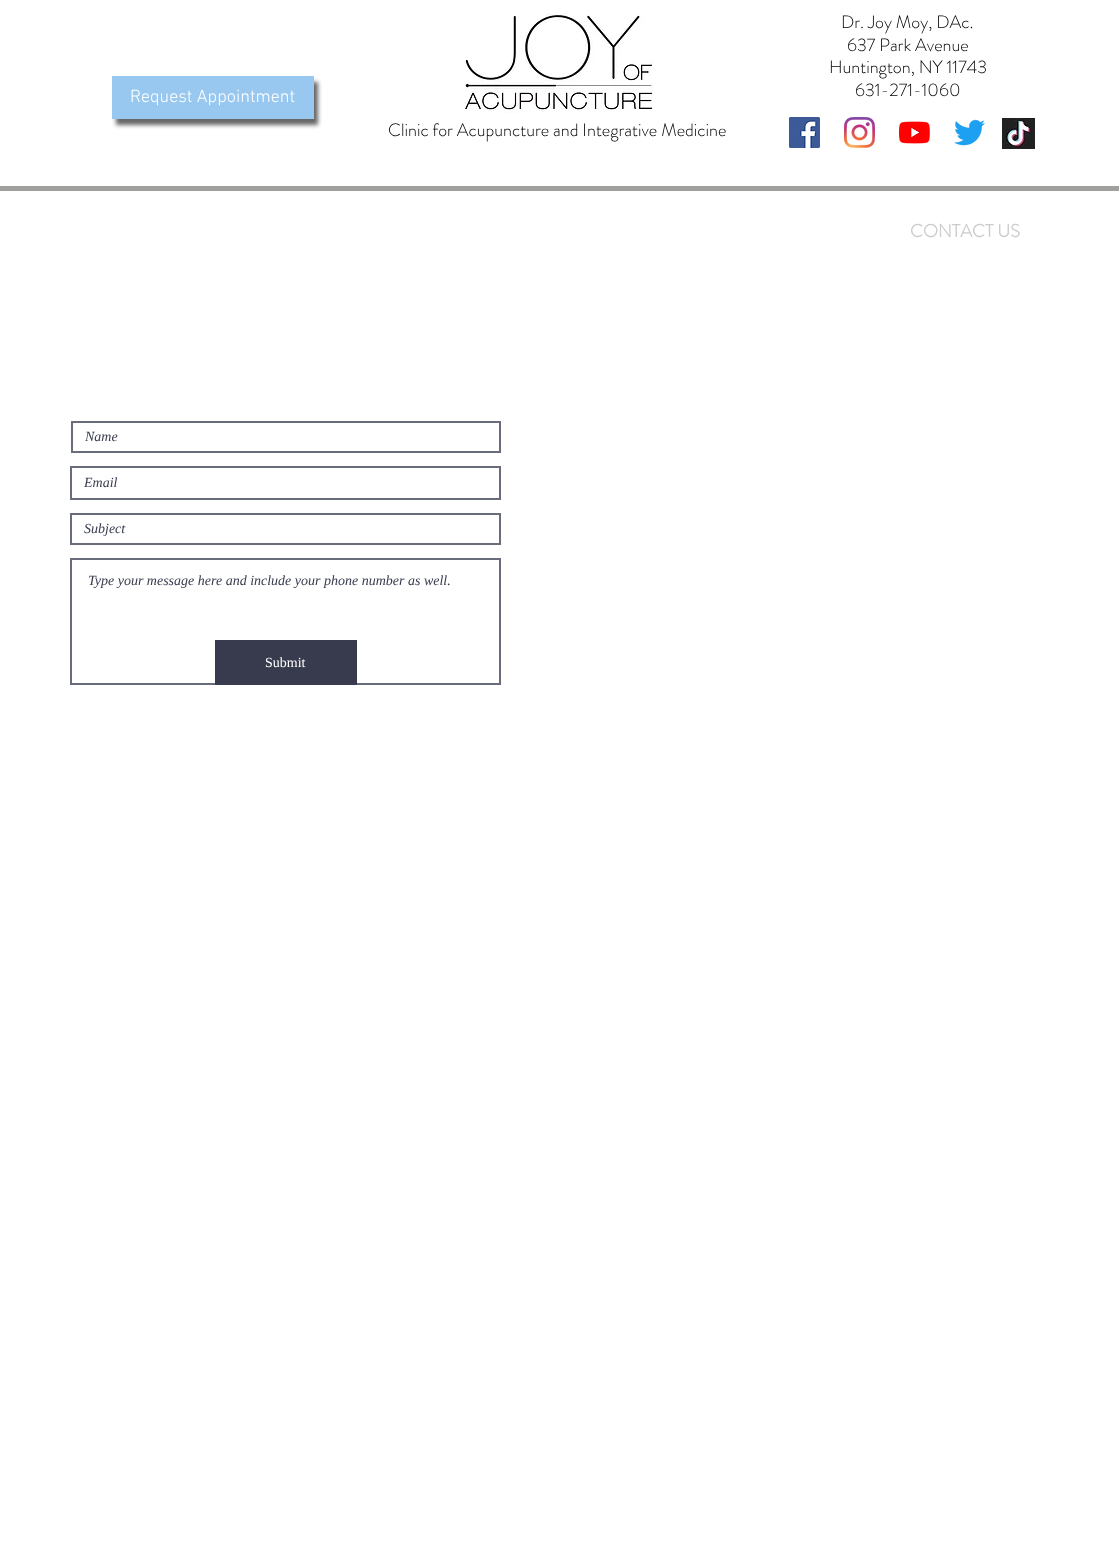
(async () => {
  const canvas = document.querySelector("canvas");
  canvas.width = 1119;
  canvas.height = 1553;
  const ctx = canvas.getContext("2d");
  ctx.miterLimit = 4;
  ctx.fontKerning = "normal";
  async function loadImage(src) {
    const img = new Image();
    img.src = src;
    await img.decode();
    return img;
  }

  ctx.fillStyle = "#ffffff";
  ctx.fillRect(0, 0, 1119, 1553);
  ctx.fillStyle = "rgba(0, 0, 0, 0.6)";
  ctx.filter = "blur(2px)";
  ctx.beginPath();
  ctx.rect(116, 82, 202, 43);
  ctx.fill();
  ctx.filter = "none";
  ctx.fillStyle = "#98c8f0";
  ctx.fillRect(112, 76, 202, 43);
  ctx.drawImage(await loadImage("img/1.png"), 465, 13, 188, 100);
  ctx.drawImage(await loadImage("img/2.png"), 789, 117, 31, 31);
  ctx.drawImage(await loadImage("img/3.png"), 844, 117, 31, 31);
  ctx.drawImage(await loadImage("img/4.png"), 899, 121, 31, 23);
  ctx.drawImage(await loadImage("img/5.png"), 954, 119, 31, 27);
  ctx.drawImage(await loadImage("img/6.png"), 1002, 118, 33, 31);
  ctx.fillStyle = "#a0a09f";
  ctx.fillRect(0, 186, 1119, 5);
  ctx.strokeStyle = "#696c7a";
  ctx.lineWidth = 2;
  ctx.strokeRect(72, 422, 428, 30);
  ctx.strokeRect(71, 467, 429, 32);
  ctx.strokeRect(71, 514, 429, 30);
  ctx.strokeRect(71, 559, 429, 125);
  ctx.fillStyle = "#373b4d";
  ctx.fillRect(215, 640, 142, 45);
  ctx.font = "300 18px 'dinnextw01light'";
  ctx.fillStyle = "#ffffff";
  ctx.fillText("Request Appointment", 130, 102);
  ctx.font = "300 18px 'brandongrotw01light'";
  ctx.fillStyle = "#000000";
  for (const [text, x, y] of [
    ["Dr. Joy Moy, DAc.", 841, 28],
    ["637 Park Avenue", 847, 51],
    ["Huntington, NY 11743", 829, 73],
    ["631-271-1060", 855, 96],
    ["Clinic for Acupuncture and Integrative Medicine", 388, 136],
  ]) {
    ctx.fillText(text, x, y);
  }
  ctx.font = "bold 18px 'brandongrotw01light'";
  ctx.fillStyle = "#cccccc";
  ctx.fillText("CONTACT US", 910, 237);
  ctx.font = "italic 14px Liberation Serif";
  ctx.fillStyle = "#373b4d";
  for (const [text, x, y] of [
    ["Name", 85, 441],
    ["Email", 84, 487],
    ["Subject", 84, 533],
    ["Type your message here and include your phone number as well.", 88, 585],
  ]) {
    ctx.fillText(text, x, y);
  }
  ctx.font = "14px Liberation Serif";
  ctx.fillStyle = "#ffffff";
  ctx.fillText("Submit", 265, 667);
})();
